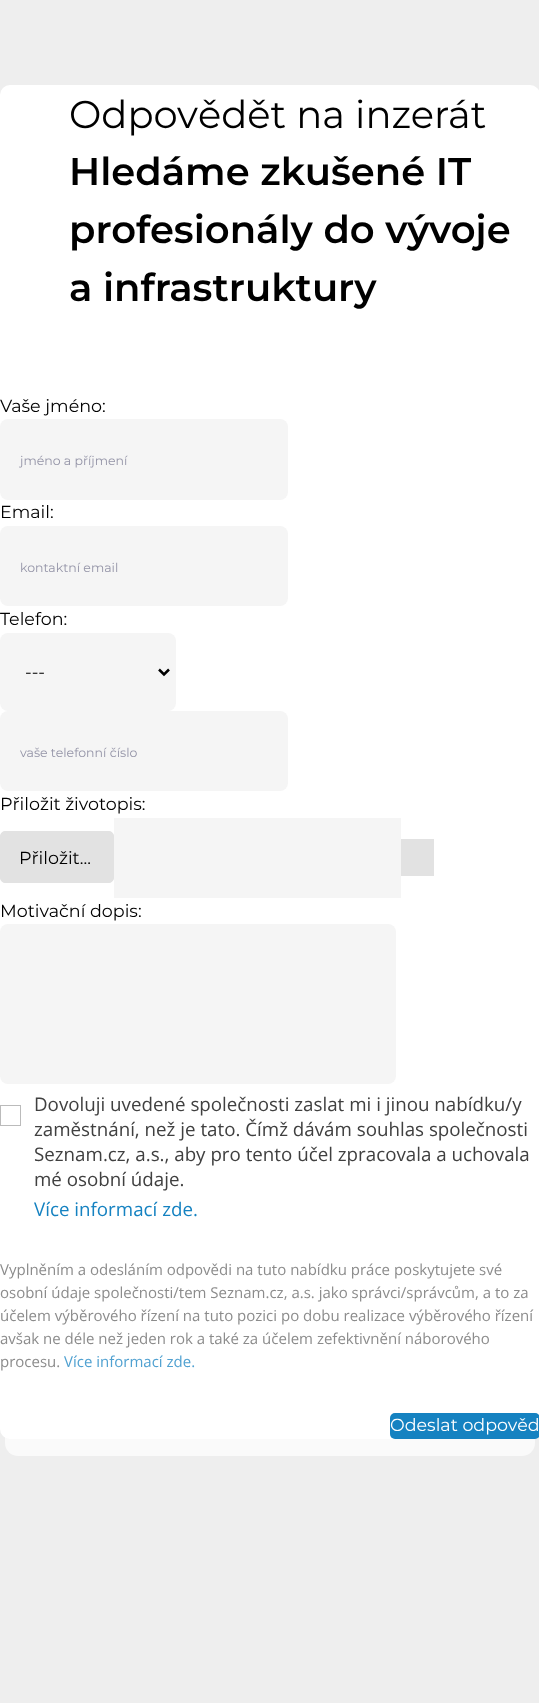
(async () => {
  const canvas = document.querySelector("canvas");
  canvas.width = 539;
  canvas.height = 1703;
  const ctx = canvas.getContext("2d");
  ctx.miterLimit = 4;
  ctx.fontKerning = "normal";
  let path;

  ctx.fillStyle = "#eeeeee";
  ctx.fillRect(0, 0, 539, 1703);
  ctx.fillStyle = "#ffffff";
  ctx.beginPath();
  ctx.roundRect(0, 85, 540, 1354, 10);
  ctx.fill();
  ctx.fillStyle = "rgba(255, 255, 255, 0.67)";
  ctx.beginPath();
  ctx.roundRect(5, 103, 530, 1353, 13);
  ctx.fill();
  ctx.fillStyle = "#f5f5f5";
  ctx.beginPath();
  ctx.roundRect(0, 419, 288, 81, 8);
  ctx.fill();
  ctx.beginPath();
  ctx.roundRect(0, 526, 288, 80, 8);
  ctx.fill();
  ctx.beginPath();
  ctx.roundRect(0, 633, 176, 78, 8);
  ctx.fill();
  path = new Path2D("M159 669.5L164 674.5L169 669.5");
  ctx.strokeStyle = "#000000";
  ctx.lineWidth = 2.5;
  ctx.stroke(path);
  ctx.beginPath();
  ctx.roundRect(0, 711, 288, 80, 8);
  ctx.fill();
  ctx.fillStyle = "#e2e2e2";
  ctx.beginPath();
  ctx.roundRect(0.5, 831.5, 113, 51, 4.5);
  ctx.fill();
  ctx.strokeStyle = "#e2e2e2";
  ctx.lineWidth = 1;
  ctx.stroke();
  ctx.fillStyle = "#f5f5f5";
  ctx.fillRect(114, 818, 287, 80);
  ctx.fillStyle = "#e2e2e2";
  ctx.fillRect(401, 839, 33, 37);
  ctx.fillStyle = "#f5f5f5";
  ctx.beginPath();
  ctx.roundRect(0, 924, 396, 160, 8);
  ctx.fill();
  ctx.strokeStyle = "#bbbbbb";
  ctx.strokeRect(0.5, 1105.5, 20, 20);
  ctx.fillStyle = "#1582c1";
  ctx.beginPath();
  ctx.roundRect(390, 1413, 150, 26, 5);
  ctx.fill();
  ctx.font = "38.5px Montserrat";
  ctx.fillStyle = "#000000";
  ctx.fillText("Odpovědět na inzerát", 69, 128);
  ctx.font = "600 38.5px Montserrat";
  for (const [text, x, y] of [
    ["Hledáme zkušené IT", 69, 185],
    ["profesionály do vývoje", 69, 243],
    ["a infrastruktury", 69, 301],
  ]) {
    ctx.fillText(text, x, y);
  }
  ctx.font = "17.5px Montserrat";
  ctx.fillText("Vaše jméno:", 0, 412);
  ctx.font = "12.5px Montserrat";
  ctx.fillStyle = "#9494a7";
  ctx.fillText("jméno a příjmení", 20, 465);
  ctx.font = "17.5px Montserrat";
  ctx.fillStyle = "#000000";
  ctx.fillText("Email:", 0, 518);
  ctx.font = "12.5px Montserrat";
  ctx.fillStyle = "#9494a7";
  ctx.fillText("kontaktní email", 20, 572);
  ctx.font = "17.5px Montserrat";
  ctx.fillStyle = "#000000";
  ctx.fillText("Telefon:", 0, 625);
  ctx.fillText("---", 25, 678);
  ctx.font = "12.5px Montserrat";
  ctx.fillStyle = "#9494a7";
  ctx.fillText("vaše telefonní číslo", 20, 757);
  ctx.font = "17.5px Montserrat";
  ctx.fillStyle = "#000000";
  for (const [text, x, y] of [
    ["Přiložit životopis:", 0, 810],
    ["Přiložit...", 19, 864],
    ["Motivační dopis:", 0, 917],
  ]) {
    ctx.fillText(text, x, y);
  }
  ctx.font = "18.75px Open Sans";
  ctx.fillStyle = "#404040";
  for (const [text, x, y] of [
    ["Dovoluji uvedené společnosti zaslat mi i jinou nabídku/y", 34, 1111],
    ["zaměstnání, než je tato. Čímž dávám souhlas společnosti", 34, 1136],
    ["Seznam.cz, a.s., aby pro tento účel zpracovala a uchovala", 34, 1161],
    ["mé osobní údaje.", 34, 1186],
  ]) {
    ctx.fillText(text, x, y);
  }
  ctx.fillStyle = "#1582c1";
  ctx.fillText("Více informací zde.", 34, 1216);
  ctx.font = "15px Open Sans";
  ctx.fillStyle = "#8c8c8c";
  for (const [text, x, y] of [
    ["Vyplněním a odesláním odpovědi na tuto nabídku práce poskytujete své", 0, 1275],
    ["osobní údaje společnosti/tem Seznam.cz, a.s. jako správci/správcům, a to za", 0, 1298],
    ["účelem výběrového řízení na tuto pozici po dobu realizace výběrového řízení", 0, 1321],
    ["avšak ne déle než jeden rok a také za účelem zefektivnění náborového", 0, 1344],
    ["procesu.", 0, 1367],
  ]) {
    ctx.fillText(text, x, y);
  }
  ctx.fillStyle = "#50a1d1";
  ctx.fillText("Více informací zde.", 64, 1367);
  ctx.font = "17.5px Montserrat";
  ctx.fillStyle = "#ffffff";
  ctx.fillText("Odeslat odpověď", 390, 1431);
})();
